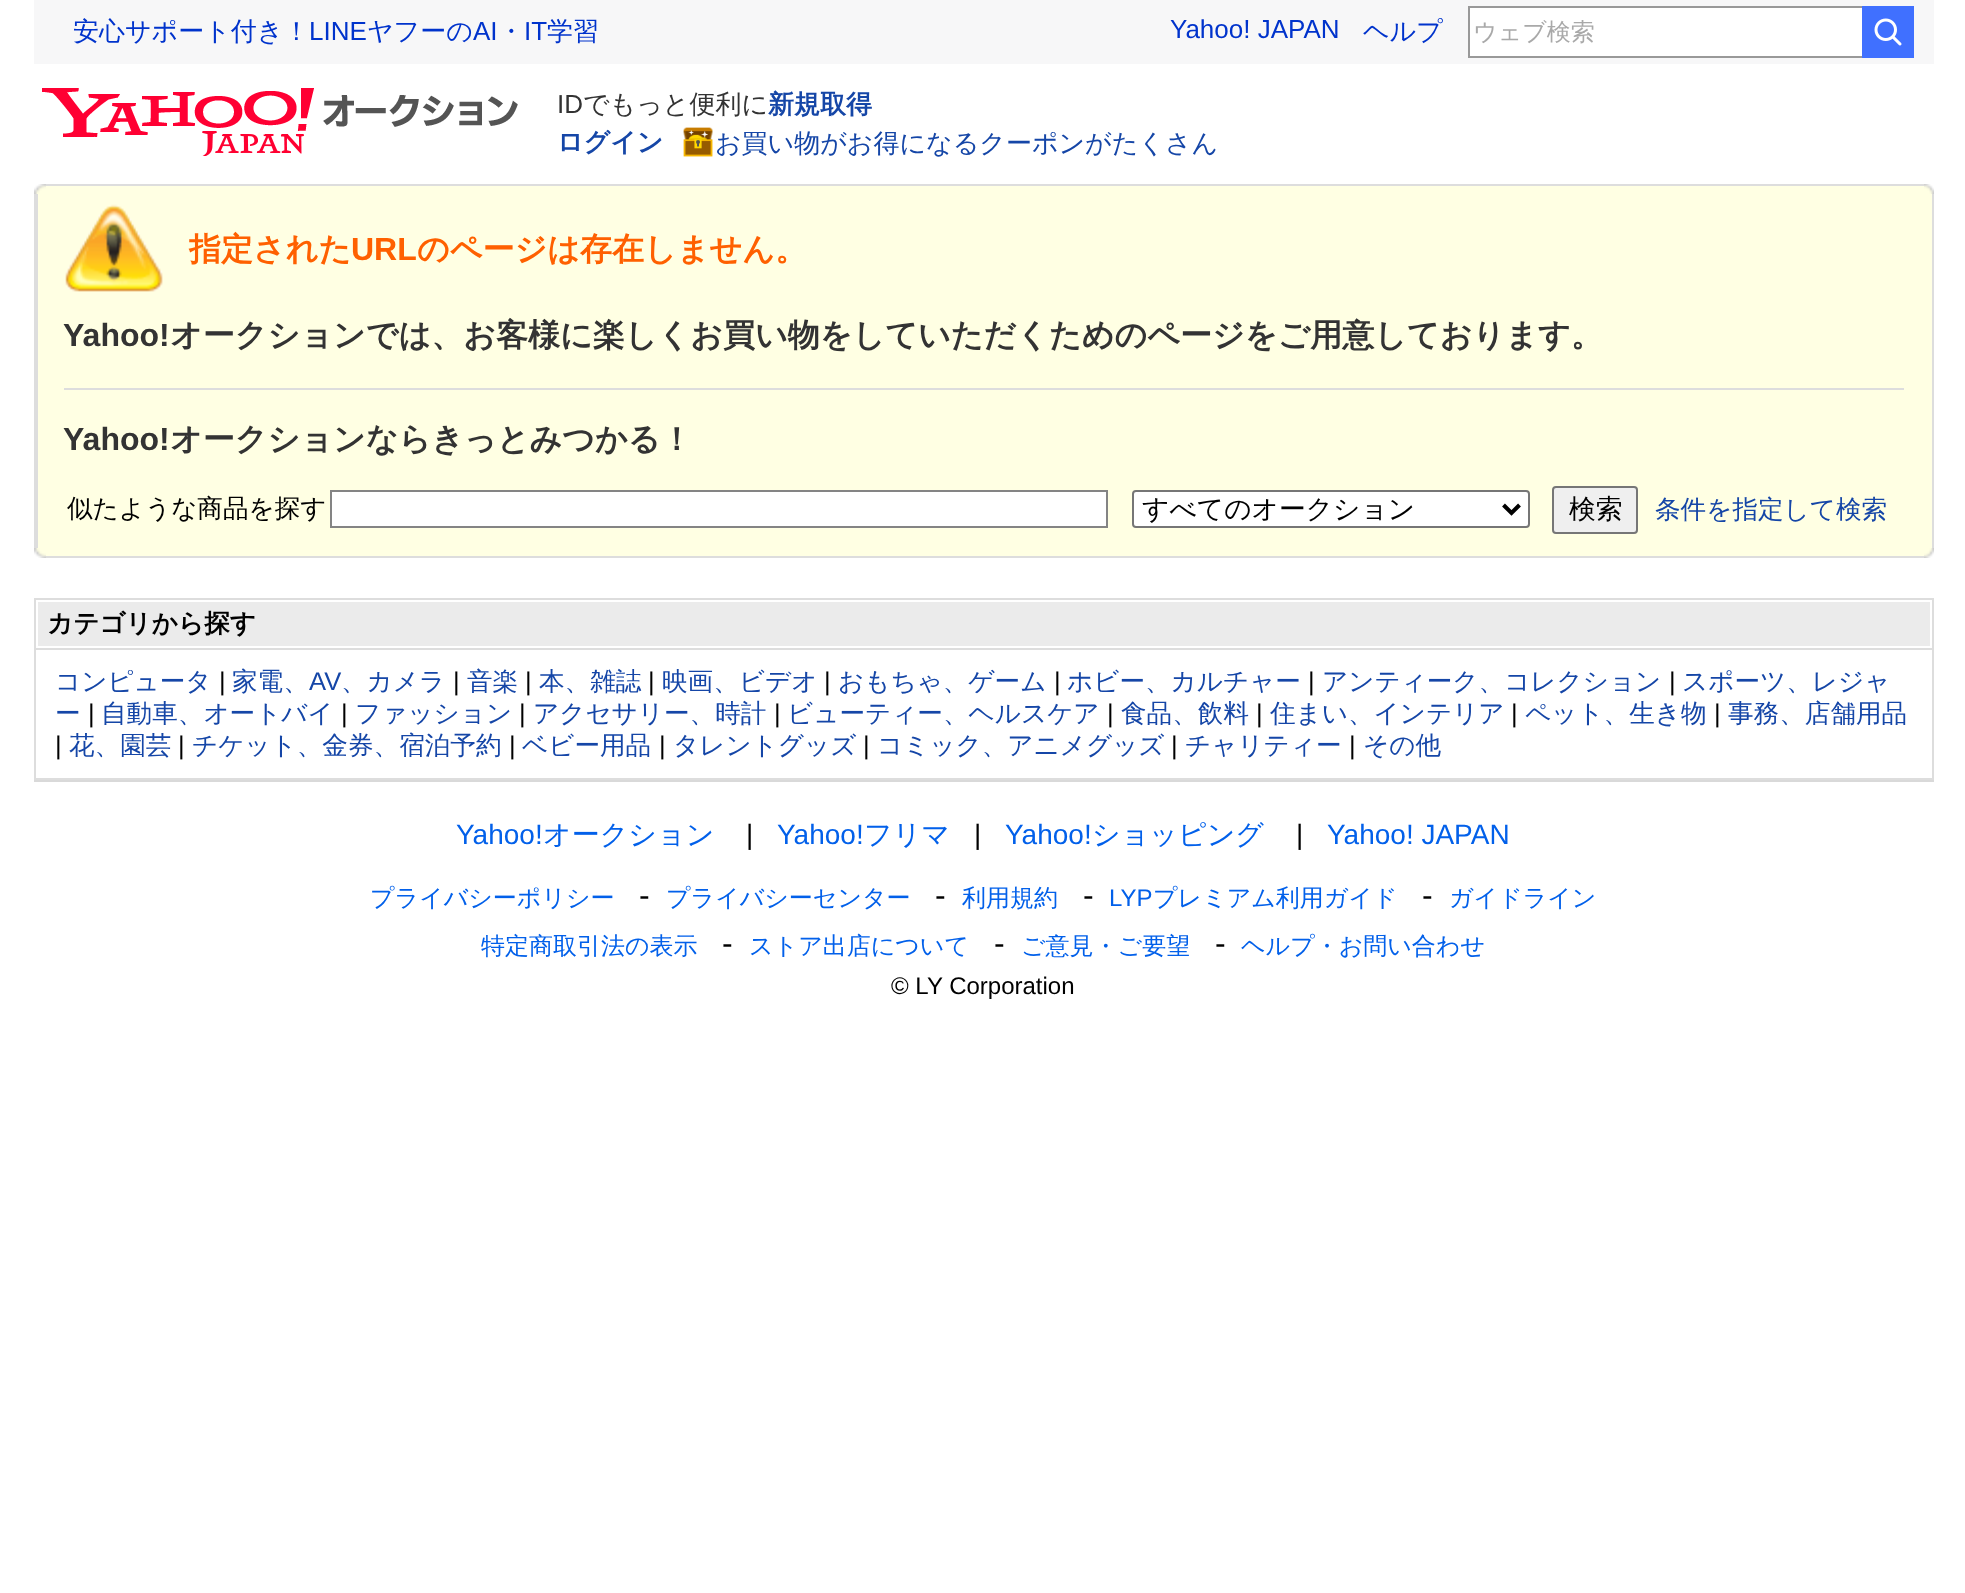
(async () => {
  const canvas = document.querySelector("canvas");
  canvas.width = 1965;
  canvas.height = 1593;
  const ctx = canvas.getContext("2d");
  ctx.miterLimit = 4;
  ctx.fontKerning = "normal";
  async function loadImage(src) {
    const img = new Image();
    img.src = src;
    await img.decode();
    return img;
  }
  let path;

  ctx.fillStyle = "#ffffff";
  ctx.fillRect(0, 0, 1965, 1593);
  for (const [x, y, w, h, color] of [
    [34, 0, 1900, 64, "#f7f7f8"],
    [1470, 8, 392, 48, "#ffffff"],
    [1468, 6, 394, 2, "#999999"],
    [1468, 56, 394, 2, "#999999"],
    [1468, 6, 2, 52, "#999999"],
    [1862, 6, 52, 52, "#4070ff"],
  ]) {
    ctx.fillStyle = color;
    ctx.fillRect(x, y, w, h);
  }
  ctx.drawImage(await loadImage("img/1.png"), 1874, 18, 28, 28);
  ctx.drawImage(await loadImage("img/2.png"), 42, 88, 476, 68);
  ctx.drawImage(await loadImage("img/3.png"), 683, 127, 30, 30);
  for (const [x, y, w, h, color] of [
    [38, 186, 1894, 370, "#ffffe3"],
    [46, 184, 1878, 2, "#dddddd"],
    [46, 556, 1878, 2, "#dddddd"],
    [34, 186, 4, 370, "#dddddd"],
    [1932, 186, 2, 370, "#dddddd"],
  ]) {
    ctx.fillStyle = color;
    ctx.fillRect(x, y, w, h);
  }
  ctx.drawImage(await loadImage("img/4.png"), 34, 184, 12, 10);
  ctx.drawImage(await loadImage("img/5.png"), 1924, 184, 10, 10);
  ctx.drawImage(await loadImage("img/6.png"), 34, 548, 12, 10);
  ctx.drawImage(await loadImage("img/7.png"), 1924, 548, 10, 10);
  ctx.drawImage(await loadImage("img/8.png"), 65, 204, 98, 88);
  ctx.fillRect(64, 388, 1840, 2);
  ctx.fillStyle = "#ffffff";
  ctx.beginPath();
  ctx.rect(331, 491, 776, 36);
  ctx.fill();
  ctx.strokeStyle = "#848484";
  ctx.lineWidth = 2;
  ctx.stroke();
  ctx.beginPath();
  ctx.roundRect(1133, 491, 396, 36, 3);
  ctx.fill();
  ctx.strokeStyle = "#767676";
  ctx.stroke();
  path = new Path2D("M1503.5 505L1511.5 513L1519.5 505");
  ctx.strokeStyle = "#000000";
  ctx.lineWidth = 4;
  ctx.stroke(path);
  ctx.fillStyle = "#efefef";
  ctx.beginPath();
  ctx.roundRect(1553, 487, 84, 46, 3);
  ctx.fill();
  ctx.strokeStyle = "#767676";
  ctx.lineWidth = 2;
  ctx.stroke();
  ctx.fillStyle = "#dddddd";
  ctx.fillRect(34, 778, 1900, 2);
  ctx.strokeStyle = "#dddddd";
  ctx.strokeRect(35, 599, 1898, 50);
  for (const [x, y, w, h, color] of [
    [38, 602, 1892, 44, "#ebebeb"],
    [1932, 650, 2, 128, "#dddddd"],
    [34, 650, 2, 128, "#dddddd"],
    [34, 780, 1900, 2, "#d9d9d9"],
  ]) {
    ctx.fillStyle = color;
    ctx.fillRect(x, y, w, h);
  }
  ctx.font = "500 26px WenQuanYi Zen Hei";
  ctx.fillStyle = "#0033cc";
  ctx.fillText("安心サポート付き！", 73, 40);
  ctx.font = "26px Liberation Sans";
  ctx.fillText("LINE", 309, 40);
  ctx.font = "500 26px WenQuanYi Zen Hei";
  ctx.fillText("ヤフーの", 367, 40);
  ctx.font = "26px Liberation Sans";
  ctx.fillText("AI", 473, 40);
  ctx.font = "500 26px WenQuanYi Zen Hei";
  ctx.fillText("・", 498, 40);
  ctx.font = "26px Liberation Sans";
  ctx.fillText("IT", 524, 40);
  ctx.font = "500 26px WenQuanYi Zen Hei";
  ctx.fillText("学習", 547, 40);
  ctx.font = "26px Liberation Sans";
  ctx.fillText("Yahoo! JAPAN", 1170, 38);
  ctx.font = "500 26px WenQuanYi Zen Hei";
  ctx.fillText("ヘルプ", 1363, 40);
  ctx.font = "500 24px WenQuanYi Zen Hei";
  ctx.fillStyle = "#a9a9a9";
  ctx.fillText("ウェブ検索", 1473, 40);
  ctx.font = "26px Liberation Sans";
  ctx.fillStyle = "#333333";
  ctx.fillText("ID", 557, 113);
  ctx.font = "500 26px WenQuanYi Zen Hei";
  ctx.fillText("でもっと便利に", 583, 113);
  ctx.font = "bold 26px WenQuanYi Zen Hei";
  ctx.fillStyle = "#1546a7";
  ctx.fillText("新規取得", 768, 113);
  ctx.fillText("ログイン", 557, 151);
  ctx.font = "500 26px WenQuanYi Zen Hei";
  ctx.fillText("お買い物がお得になるクーポンがたくさん", 715, 152);
  ctx.font = "bold 32px WenQuanYi Zen Hei";
  ctx.fillStyle = "#ff6000";
  ctx.fillText("指定された", 189, 260);
  ctx.font = "bold 32px Liberation Sans";
  ctx.fillText("URL", 351, 260);
  ctx.font = "bold 32px WenQuanYi Zen Hei";
  ctx.fillText("のページは存在しません。", 417, 260);
  ctx.font = "bold 32px Liberation Sans";
  ctx.fillStyle = "#333333";
  ctx.fillText("Yahoo!", 63, 346);
  ctx.font = "bold 32px WenQuanYi Zen Hei";
  ctx.fillText("オークションでは、お客様に楽しくお買い物をしていただくためのページをご用意しております。", 170, 346);
  ctx.font = "bold 32px Liberation Sans";
  ctx.fillText("Yahoo!", 63, 450);
  ctx.font = "bold 32px WenQuanYi Zen Hei";
  ctx.fillText("オークションならきっとみつかる！", 170, 450);
  ctx.font = "500 25.6px WenQuanYi Zen Hei";
  ctx.fillStyle = "#000000";
  ctx.fillText("似たような商品を探す", 67, 517);
  ctx.font = "500 26.75px WenQuanYi Zen Hei";
  ctx.fillText("すべてのオークション", 1142, 518);
  ctx.fillText("検索", 1569, 518);
  ctx.font = "500 25.6px WenQuanYi Zen Hei";
  ctx.fillStyle = "#1546a7";
  ctx.fillText("条件を指定して検索", 1655, 518);
  ctx.font = "bold 25.6px WenQuanYi Zen Hei";
  ctx.fillStyle = "#000000";
  ctx.fillText("カテゴリから探す", 47, 632);
  ctx.font = "500 25.6px WenQuanYi Zen Hei";
  ctx.fillStyle = "#1546a7";
  ctx.fillText("コンピュータ", 55, 690);
  ctx.font = "25.6px Liberation Sans";
  ctx.fillStyle = "#000000";
  ctx.fillText("|", 219, 690);
  ctx.font = "500 25.6px WenQuanYi Zen Hei";
  ctx.fillStyle = "#1546a7";
  ctx.fillText("家電、", 232, 690);
  ctx.font = "25.6px Liberation Sans";
  ctx.fillText("AV", 309, 690);
  ctx.font = "500 25.6px WenQuanYi Zen Hei";
  ctx.fillText("、カメラ", 341, 690);
  ctx.font = "25.6px Liberation Sans";
  ctx.fillStyle = "#000000";
  ctx.fillText("|", 453, 690);
  ctx.font = "500 25.6px WenQuanYi Zen Hei";
  ctx.fillStyle = "#1546a7";
  ctx.fillText("音楽", 467, 690);
  ctx.font = "25.6px Liberation Sans";
  ctx.fillStyle = "#000000";
  ctx.fillText("|", 525, 690);
  ctx.font = "500 25.6px WenQuanYi Zen Hei";
  ctx.fillStyle = "#1546a7";
  ctx.fillText("本、雑誌", 539, 690);
  ctx.font = "25.6px Liberation Sans";
  ctx.fillStyle = "#000000";
  ctx.fillText("|", 648, 690);
  ctx.font = "500 25.6px WenQuanYi Zen Hei";
  ctx.fillStyle = "#1546a7";
  ctx.fillText("映画、ビデオ", 662, 690);
  ctx.font = "25.6px Liberation Sans";
  ctx.fillStyle = "#000000";
  ctx.fillText("|", 824, 690);
  ctx.font = "500 25.6px WenQuanYi Zen Hei";
  ctx.fillStyle = "#1546a7";
  ctx.fillText("おもちゃ、ゲーム", 838, 690);
  ctx.font = "25.6px Liberation Sans";
  ctx.fillStyle = "#000000";
  ctx.fillText("|", 1054, 690);
  ctx.font = "500 25.6px WenQuanYi Zen Hei";
  ctx.fillStyle = "#1546a7";
  ctx.fillText("ホビー、カルチャー", 1067, 690);
  ctx.font = "25.6px Liberation Sans";
  ctx.fillStyle = "#000000";
  ctx.fillText("|", 1308, 690);
  ctx.font = "500 25.6px WenQuanYi Zen Hei";
  ctx.fillStyle = "#1546a7";
  ctx.fillText("アンティーク、コレクション", 1322, 690);
  ctx.font = "25.6px Liberation Sans";
  ctx.fillStyle = "#000000";
  ctx.fillText("|", 1669, 690);
  ctx.font = "500 25.6px WenQuanYi Zen Hei";
  ctx.fillStyle = "#1546a7";
  ctx.fillText("スポーツ、レジャ", 1682, 690);
  ctx.fillText("ー", 55, 722);
  ctx.font = "25.6px Liberation Sans";
  ctx.fillStyle = "#000000";
  ctx.fillText("|", 88, 722);
  ctx.font = "500 25.6px WenQuanYi Zen Hei";
  ctx.fillStyle = "#1546a7";
  ctx.fillText("自動車、オートバイ", 101, 722);
  ctx.font = "25.6px Liberation Sans";
  ctx.fillStyle = "#000000";
  ctx.fillText("|", 341, 722);
  ctx.font = "500 25.6px WenQuanYi Zen Hei";
  ctx.fillStyle = "#1546a7";
  ctx.fillText("ファッション", 355, 722);
  ctx.font = "25.6px Liberation Sans";
  ctx.fillStyle = "#000000";
  ctx.fillText("|", 519, 722);
  ctx.font = "500 25.6px WenQuanYi Zen Hei";
  ctx.fillStyle = "#1546a7";
  ctx.fillText("アクセサリー、時計", 533, 722);
  ctx.font = "25.6px Liberation Sans";
  ctx.fillStyle = "#000000";
  ctx.fillText("|", 774, 722);
  ctx.font = "500 25.6px WenQuanYi Zen Hei";
  ctx.fillStyle = "#1546a7";
  ctx.fillText("ビューティー、ヘルスケア", 787, 722);
  ctx.font = "25.6px Liberation Sans";
  ctx.fillStyle = "#000000";
  ctx.fillText("|", 1107, 722);
  ctx.font = "500 25.6px WenQuanYi Zen Hei";
  ctx.fillStyle = "#1546a7";
  ctx.fillText("食品、飲料", 1121, 722);
  ctx.font = "25.6px Liberation Sans";
  ctx.fillStyle = "#000000";
  ctx.fillText("|", 1256, 722);
  ctx.font = "500 25.6px WenQuanYi Zen Hei";
  ctx.fillStyle = "#1546a7";
  ctx.fillText("住まい、インテリア", 1270, 722);
  ctx.font = "25.6px Liberation Sans";
  ctx.fillStyle = "#000000";
  ctx.fillText("|", 1511, 722);
  ctx.font = "500 25.6px WenQuanYi Zen Hei";
  ctx.fillStyle = "#1546a7";
  ctx.fillText("ペット、生き物", 1525, 722);
  ctx.font = "25.6px Liberation Sans";
  ctx.fillStyle = "#000000";
  ctx.fillText("|", 1714, 722);
  ctx.font = "500 25.6px WenQuanYi Zen Hei";
  ctx.fillStyle = "#1546a7";
  ctx.fillText("事務、店舗用品", 1728, 722);
  ctx.font = "25.6px Liberation Sans";
  ctx.fillStyle = "#000000";
  ctx.fillText("|", 55, 754);
  ctx.font = "500 25.6px WenQuanYi Zen Hei";
  ctx.fillStyle = "#1546a7";
  ctx.fillText("花、園芸", 69, 754);
  ctx.font = "25.6px Liberation Sans";
  ctx.fillStyle = "#000000";
  ctx.fillText("|", 178, 754);
  ctx.font = "500 25.6px WenQuanYi Zen Hei";
  ctx.fillStyle = "#1546a7";
  ctx.fillText("チケット、金券、宿泊予約", 192, 754);
  ctx.font = "25.6px Liberation Sans";
  ctx.fillStyle = "#000000";
  ctx.fillText("|", 509, 754);
  ctx.font = "500 25.6px WenQuanYi Zen Hei";
  ctx.fillStyle = "#1546a7";
  ctx.fillText("ベビー用品", 522, 754);
  ctx.font = "25.6px Liberation Sans";
  ctx.fillStyle = "#000000";
  ctx.fillText("|", 659, 754);
  ctx.font = "500 25.6px WenQuanYi Zen Hei";
  ctx.fillStyle = "#1546a7";
  ctx.fillText("タレントグッズ", 673, 754);
  ctx.font = "25.6px Liberation Sans";
  ctx.fillStyle = "#000000";
  ctx.fillText("|", 863, 754);
  ctx.font = "500 25.6px WenQuanYi Zen Hei";
  ctx.fillStyle = "#1546a7";
  ctx.fillText("コミック、アニメグッズ", 877, 754);
  ctx.font = "25.6px Liberation Sans";
  ctx.fillStyle = "#000000";
  ctx.fillText("|", 1171, 754);
  ctx.font = "500 25.6px WenQuanYi Zen Hei";
  ctx.fillStyle = "#1546a7";
  ctx.fillText("チャリティー", 1185, 754);
  ctx.font = "25.6px Liberation Sans";
  ctx.fillStyle = "#000000";
  ctx.fillText("|", 1349, 754);
  ctx.font = "500 25.6px WenQuanYi Zen Hei";
  ctx.fillStyle = "#1546a7";
  ctx.fillText("その他", 1363, 754);
  ctx.font = "28px Liberation Sans";
  ctx.fillStyle = "#0260ea";
  ctx.fillText("Yahoo!", 456, 844);
  ctx.font = "500 28px WenQuanYi Zen Hei";
  ctx.fillText("オークション", 543, 844);
  ctx.font = "28px Liberation Sans";
  ctx.fillStyle = "#000000";
  ctx.fillText("|", 746, 844);
  ctx.fillStyle = "#0260ea";
  ctx.fillText("Yahoo!", 777, 844);
  ctx.font = "500 28px WenQuanYi Zen Hei";
  ctx.fillText("フリマ", 864, 844);
  ctx.font = "28px Liberation Sans";
  ctx.fillStyle = "#000000";
  ctx.fillText("|", 974, 844);
  ctx.fillStyle = "#0260ea";
  ctx.fillText("Yahoo!", 1005, 844);
  ctx.font = "500 28px WenQuanYi Zen Hei";
  ctx.fillText("ショッピング", 1092, 844);
  ctx.font = "28px Liberation Sans";
  ctx.fillStyle = "#000000";
  ctx.fillText("|", 1296, 844);
  ctx.fillStyle = "#0260ea";
  ctx.fillText("Yahoo! JAPAN", 1327, 844);
  ctx.font = "500 24px WenQuanYi Zen Hei";
  ctx.fillText("プライバシーポリシー", 370, 906);
  ctx.font = "32px Liberation Sans";
  ctx.fillStyle = "#000000";
  ctx.fillText("-", 639, 906);
  ctx.font = "500 24px WenQuanYi Zen Hei";
  ctx.fillStyle = "#0260ea";
  ctx.fillText("プライバシーセンター", 666, 906);
  ctx.font = "32px Liberation Sans";
  ctx.fillStyle = "#000000";
  ctx.fillText("-", 935, 906);
  ctx.font = "500 24px WenQuanYi Zen Hei";
  ctx.fillStyle = "#0260ea";
  ctx.fillText("利用規約", 962, 906);
  ctx.font = "32px Liberation Sans";
  ctx.fillStyle = "#000000";
  ctx.fillText("-", 1083, 906);
  ctx.font = "24px Liberation Sans";
  ctx.fillStyle = "#0260ea";
  ctx.fillText("LYP", 1109, 906);
  ctx.font = "500 24px WenQuanYi Zen Hei";
  ctx.fillText("プレミアム利用ガイド", 1153, 906);
  ctx.font = "32px Liberation Sans";
  ctx.fillStyle = "#000000";
  ctx.fillText("-", 1422, 906);
  ctx.font = "500 24px WenQuanYi Zen Hei";
  ctx.fillStyle = "#0260ea";
  ctx.fillText("ガイドライン", 1449, 906);
  ctx.fillText("特定商取引法の表示", 481, 954);
  ctx.font = "32px Liberation Sans";
  ctx.fillStyle = "#000000";
  ctx.fillText("-", 722, 954);
  ctx.font = "500 24px WenQuanYi Zen Hei";
  ctx.fillStyle = "#0260ea";
  ctx.fillText("ストア出店について", 749, 954);
  ctx.font = "32px Liberation Sans";
  ctx.fillStyle = "#000000";
  ctx.fillText("-", 994, 954);
  ctx.font = "500 24px WenQuanYi Zen Hei";
  ctx.fillStyle = "#0260ea";
  ctx.fillText("ご意見・ご要望", 1021, 954);
  ctx.font = "32px Liberation Sans";
  ctx.fillStyle = "#000000";
  ctx.fillText("-", 1215, 954);
  ctx.font = "500 24px WenQuanYi Zen Hei";
  ctx.fillStyle = "#0260ea";
  ctx.fillText("ヘルプ・お問い合わせ", 1241, 954);
  ctx.font = "24px Liberation Sans";
  ctx.fillStyle = "#000000";
  ctx.fillText("© LY Corporation", 891, 994);
})();
